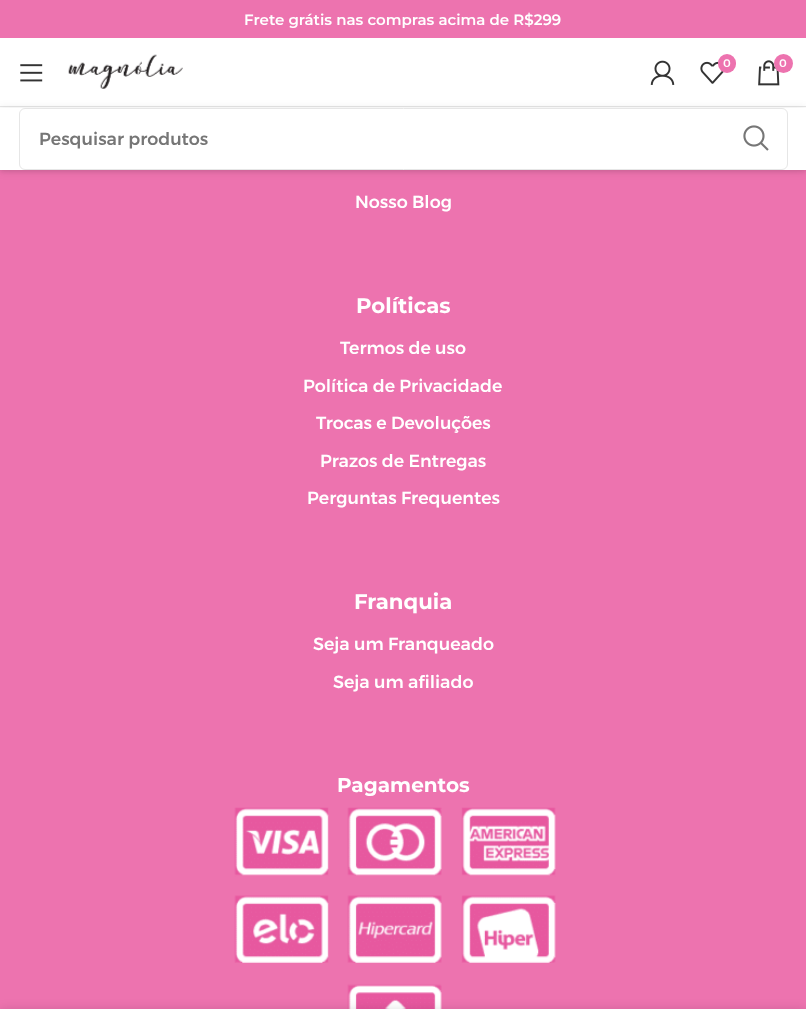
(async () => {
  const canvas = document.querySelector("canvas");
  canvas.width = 806;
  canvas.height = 1009;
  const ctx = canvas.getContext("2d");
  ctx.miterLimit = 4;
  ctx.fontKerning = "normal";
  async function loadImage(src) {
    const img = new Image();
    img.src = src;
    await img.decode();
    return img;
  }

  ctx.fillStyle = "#ed73af";
  ctx.fillRect(0, 0, 806, 1009);
  ctx.fillStyle = "rgba(0, 0, 0, 0.1)";
  ctx.filter = "blur(2px)";
  ctx.beginPath();
  ctx.rect(0, 1, 806, 170);
  ctx.fill();
  ctx.filter = "none";
  for (const [x, y, w, h, color] of [
    [0, 0, 806, 38, "#ed73af"],
    [0, 38, 806, 70, "#ffffff"],
    [0, 106, 806, 1, "#e6e6e6"],
  ]) {
    ctx.fillStyle = color;
    ctx.fillRect(x, y, w, h);
  }
  ctx.drawImage(await loadImage("img/1.png"), 20, 64, 23, 18);
  ctx.drawImage(await loadImage("img/2.png"), 68, 54, 115, 35);
  ctx.drawImage(await loadImage("img/3.png"), 650, 60, 25, 25);
  ctx.drawImage(await loadImage("img/4.png"), 700, 61, 24, 23);
  ctx.fillStyle = "#ed73af";
  ctx.beginPath();
  ctx.roundRect(718, 54, 18, 19, 9);
  ctx.fill();
  ctx.drawImage(await loadImage("img/5.png"), 758, 60, 22, 26);
  ctx.beginPath();
  ctx.arc(783.5, 63.5, 9.5, 0, Math.PI * 2);
  ctx.fill();
  ctx.fillStyle = "rgba(0, 0, 0, 0.1)";
  ctx.filter = "blur(5px)";
  ctx.beginPath();
  ctx.rect(0, 109, 806, 62);
  ctx.fill();
  ctx.filter = "none";
  ctx.fillStyle = "#ffffff";
  ctx.fillRect(0, 108, 806, 62);
  ctx.beginPath();
  ctx.roundRect(19.5, 108.5, 768, 61, 5.5);
  ctx.strokeStyle = "#e6e6e6";
  ctx.stroke();
  ctx.drawImage(await loadImage("img/6.png"), 743, 125, 26, 26);
  ctx.drawImage(await loadImage("img/7.png"), 234, 807, 322, 202);
  ctx.fillStyle = "rgba(0, 0, 0, 0.14)";
  ctx.filter = "blur(5.5px)";
  ctx.beginPath();
  ctx.rect(0, 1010, 806, 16);
  ctx.fill();
  ctx.filter = "none";
  ctx.font = "100 15px 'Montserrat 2'";
  ctx.fillStyle = "#ffffff";
  ctx.fillText("Frete grátis nas compras acima de R$299", 244, 25);
  ctx.font = "500 11px Montserrat";
  ctx.fillText("0", 723, 67);
  ctx.fillText("0", 779, 67);
  ctx.font = "500 17.5px Montserrat";
  ctx.fillStyle = "#767676";
  ctx.fillText("Pesquisar produtos", 39, 145);
  ctx.fillStyle = "#ffffff";
  ctx.fillText("Nosso Blog", 355, 208);
  ctx.font = "100 21.25px Montserrat";
  ctx.fillText("Políticas", 356, 313);
  ctx.font = "500 17.5px Montserrat";
  for (const [text, x, y] of [
    ["Termos de uso", 340, 354],
    ["Política de Privacidade", 303, 392],
    ["Trocas e Devoluções", 316, 429],
    ["Prazos de Entregas", 320, 467],
    ["Perguntas Frequentes", 307, 504],
  ]) {
    ctx.fillText(text, x, y);
  }
  ctx.font = "100 21.25px Montserrat";
  ctx.fillText("Franquia", 354, 609);
  ctx.font = "500 17.5px Montserrat";
  ctx.fillText("Seja um Franqueado", 313, 650);
  ctx.fillText("Seja um afiliado", 333, 688);
  ctx.font = "100 20px Montserrat";
  ctx.fillText("Pagamentos", 337, 792);
})();
